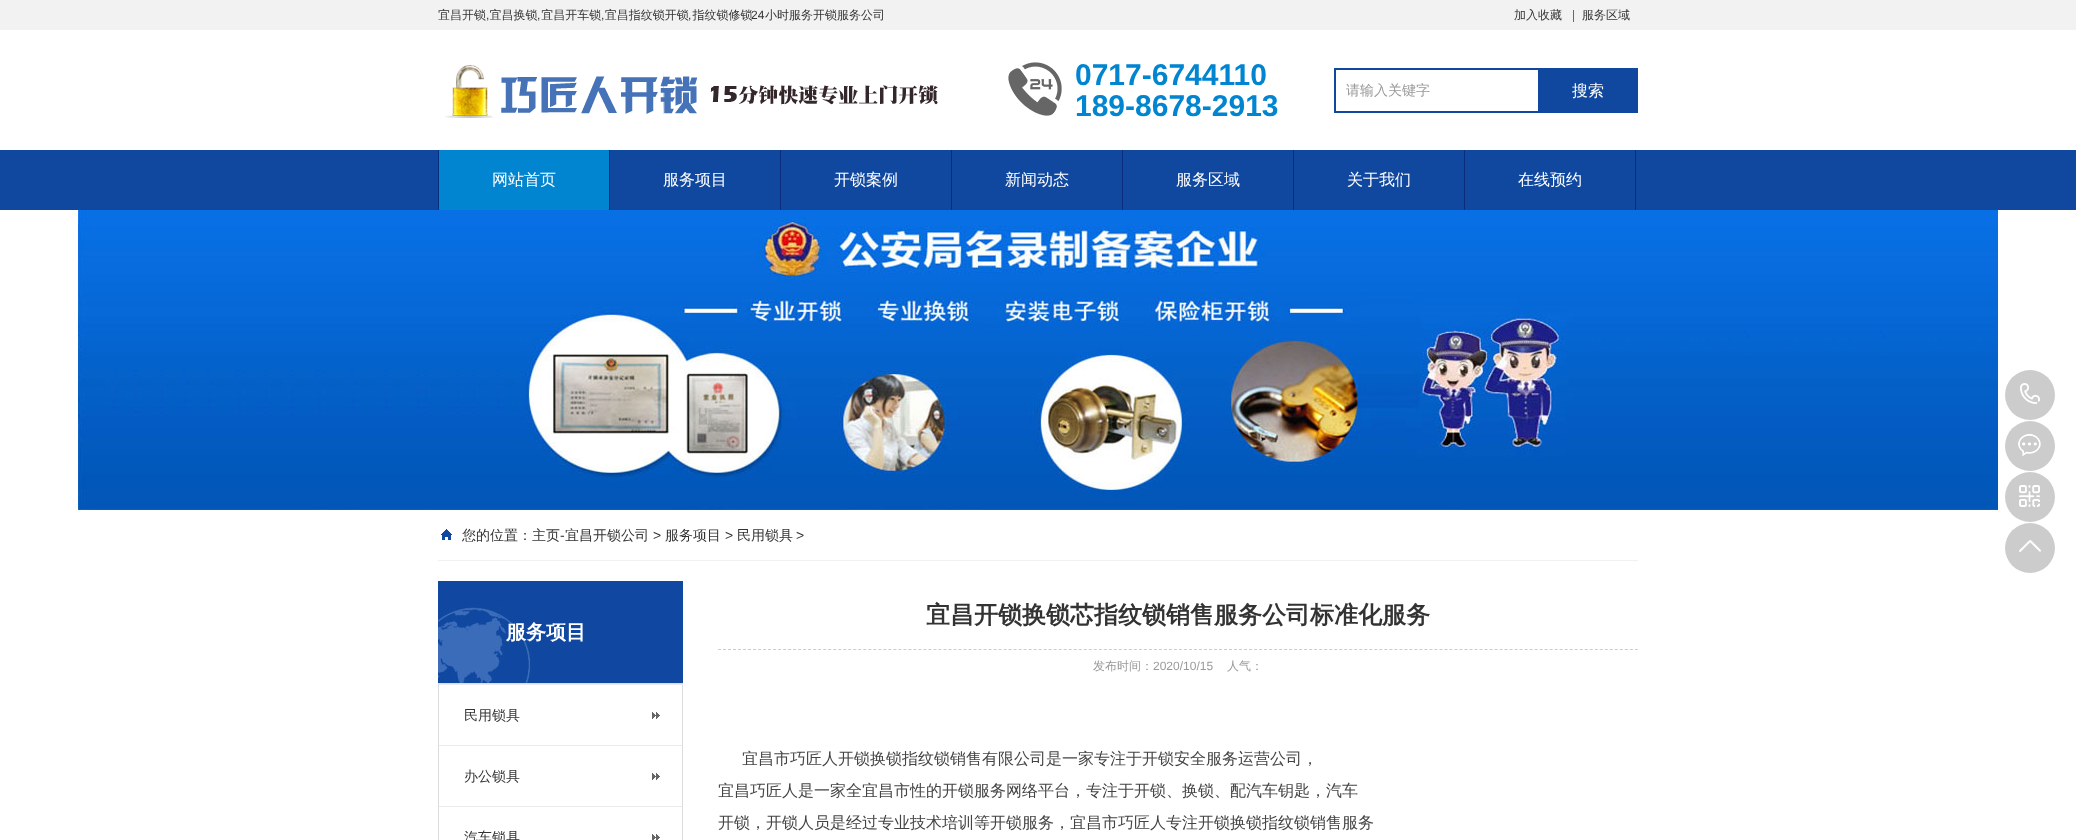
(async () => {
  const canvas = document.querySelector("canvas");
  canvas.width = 2076;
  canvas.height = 840;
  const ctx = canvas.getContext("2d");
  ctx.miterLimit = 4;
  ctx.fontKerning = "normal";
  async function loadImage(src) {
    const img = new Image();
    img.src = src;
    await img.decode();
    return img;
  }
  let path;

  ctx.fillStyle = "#ffffff";
  ctx.fillRect(0, 0, 2076, 840);
  ctx.fillStyle = "#f2f2f2";
  ctx.fillRect(0, 0, 2076, 30);
  ctx.fillStyle = "#666666";
  ctx.fillRect(1573, 10, 1, 12);
  ctx.drawImage(await loadImage("img/1.png"), 445, 65, 493, 53);
  ctx.drawImage(await loadImage("img/2.png"), 1008, 62, 54, 54);
  ctx.strokeStyle = "#1048a0";
  ctx.lineWidth = 2;
  ctx.strokeRect(1335, 69, 302, 43);
  for (const [x, y, w, h, color] of [
    [1538, 70, 98, 41, "#1048a0"],
    [0, 150, 2076, 60, "#1048a0"],
    [439, 150, 170, 60, "#0185d0"],
    [609, 150, 1, 60, "#0b2d7e"],
    [438, 150, 1, 60, "#0b2d7e"],
    [780, 150, 1, 60, "#0b2d7e"],
    [951, 150, 1, 60, "#0b2d7e"],
    [1122, 150, 1, 60, "#0b2d7e"],
    [1293, 150, 1, 60, "#0b2d7e"],
    [1464, 150, 1, 60, "#0b2d7e"],
    [1635, 150, 1, 60, "#0b2d7e"],
  ]) {
    ctx.fillStyle = color;
    ctx.fillRect(x, y, w, h);
  }
  ctx.drawImage(await loadImage("img/3.png"), 78, 210, 1920, 300);
  ctx.drawImage(await loadImage("img/4.png"), 2005, 370, 50, 50);
  ctx.drawImage(await loadImage("img/5.png"), 2020, 383, 20, 21);
  ctx.drawImage(await loadImage("img/4.png"), 2005, 421, 50, 50);
  ctx.drawImage(await loadImage("img/6.png"), 2018, 434, 23, 22);
  ctx.drawImage(await loadImage("img/4.png"), 2005, 472, 50, 50);
  ctx.drawImage(await loadImage("img/7.png"), 2019, 485, 21, 22);
  ctx.drawImage(await loadImage("img/4.png"), 2005, 523, 50, 50);
  ctx.drawImage(await loadImage("img/8.png"), 2019, 540, 22, 12);
  ctx.fillStyle = "#f1f1f1";
  ctx.fillRect(438, 560, 1200, 1);
  ctx.drawImage(await loadImage("img/9.png"), 441, 529, 11, 11);
  ctx.drawImage(await loadImage("img/10.png"), 438, 581, 245, 102);
  ctx.strokeStyle = "#dddddd";
  ctx.lineWidth = 1;
  ctx.strokeRect(438.5, 683.5, 244, 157);
  ctx.drawImage(await loadImage("img/11.png"), 652, 712, 8, 7);
  ctx.fillStyle = "#eaeaea";
  ctx.fillRect(439, 684, 243, 1);
  ctx.drawImage(await loadImage("img/11.png"), 652, 773, 8, 7);
  ctx.fillRect(439, 745, 243, 1);
  ctx.drawImage(await loadImage("img/12.png"), 652, 834, 8, 6);
  ctx.fillRect(439, 806, 243, 1);
  path = new Path2D("M718 649.5H1638");
  ctx.strokeStyle = "#cccccc";
  ctx.setLineDash([3, 2.01]);
  ctx.stroke(path);
  ctx.font = "500 12px WenQuanYi Zen Hei";
  ctx.fillStyle = "#333333";
  ctx.fillText("宜昌开锁 宜昌换锁 宜昌开车锁 宜昌指纹锁开锁 指纹锁修锁", 438, 19);
  ctx.font = "12px Liberation Sans";
  ctx.fillText("24", 751, 19);
  ctx.font = "500 12px WenQuanYi Zen Hei";
  ctx.fillText("小时服务开锁服务公司", 765, 19);
  ctx.font = "12px Liberation Sans";
  for (const [text, x, y] of [
    [",", 486, 19],
    [",", 537, 19],
    [",", 601, 19],
    [",", 688, 19],
  ]) {
    ctx.fillText(text, x, y);
  }
  ctx.font = "500 12px WenQuanYi Zen Hei";
  ctx.fillText("加入收藏", 1514, 19);
  ctx.fillText("服务区域", 1582, 19);
  ctx.font = "bold 30px Liberation Sans";
  ctx.fillStyle = "#0185d0";
  ctx.fillText("0717-6744110", 1075, 85);
  ctx.fillText("189-8678-2913", 1075, 116);
  ctx.font = "500 14px WenQuanYi Zen Hei";
  ctx.fillStyle = "#999999";
  ctx.fillText("请输入关键字", 1346, 95);
  ctx.font = "500 16px WenQuanYi Zen Hei";
  ctx.fillStyle = "#ffffff";
  for (const [text, x, y] of [
    ["搜索", 1572, 96],
    ["网站首页", 492, 185],
    ["服务项目", 663, 185],
    ["开锁案例", 834, 185],
    ["新闻动态", 1005, 185],
    ["服务区域", 1176, 185],
    ["关于我们", 1347, 185],
    ["在线预约", 1518, 185],
  ]) {
    ctx.fillText(text, x, y);
  }
  ctx.font = "500 14px WenQuanYi Zen Hei";
  ctx.fillStyle = "#333333";
  ctx.fillText("您的位置：主页", 462, 540);
  ctx.font = "14px Liberation Sans";
  ctx.fillText("-", 560, 540);
  ctx.font = "500 14px WenQuanYi Zen Hei";
  ctx.fillText("宜昌开锁公司", 565, 540);
  ctx.font = "14px Liberation Sans";
  ctx.fillText(">", 653, 540);
  ctx.font = "500 14px WenQuanYi Zen Hei";
  ctx.fillText("服务项目", 665, 540);
  ctx.font = "14px Liberation Sans";
  ctx.fillText(">", 725, 540);
  ctx.font = "500 14px WenQuanYi Zen Hei";
  ctx.fillText("民用锁具", 737, 540);
  ctx.font = "14px Liberation Sans";
  ctx.fillText(">", 796, 540);
  ctx.font = "bold 20px WenQuanYi Zen Hei";
  ctx.fillStyle = "#ffffff";
  ctx.fillText("服务项目", 506, 639);
  ctx.font = "500 14px WenQuanYi Zen Hei";
  ctx.fillStyle = "#333333";
  for (const [text, x, y] of [
    ["民用锁具", 464, 720],
    ["办公锁具", 464, 781],
    ["汽车锁具", 464, 842],
  ]) {
    ctx.fillText(text, x, y);
  }
  ctx.font = "bold 24px WenQuanYi Zen Hei";
  ctx.fillText("宜昌开锁换锁芯指纹锁销售服务公司标准化服务", 926, 623);
  ctx.font = "500 12px WenQuanYi Zen Hei";
  ctx.fillStyle = "#999999";
  ctx.fillText("发布时间：", 1093, 670);
  ctx.font = "12px Liberation Sans";
  ctx.fillText("2020/10/15", 1153, 670);
  ctx.font = "500 12px WenQuanYi Zen Hei";
  ctx.fillText("人气：", 1227, 670);
  ctx.font = "500 16px WenQuanYi Zen Hei";
  ctx.fillStyle = "#444444";
  for (const [text, x, y] of [
    ["宜昌市巧匠人开锁换锁指纹锁销售有限公司是一家专注于开锁安全服务运营公司，", 742, 764],
    ["宜昌巧匠人是一家全宜昌市性的开锁服务网络平台，专注于开锁、换锁、配汽车钥匙，汽车", 718, 796],
    ["开锁，开锁人员是经过专业技术培训等开锁服务，宜昌市巧匠人专注开锁换锁指纹锁销售服务", 718, 828],
  ]) {
    ctx.fillText(text, x, y);
  }
})();
